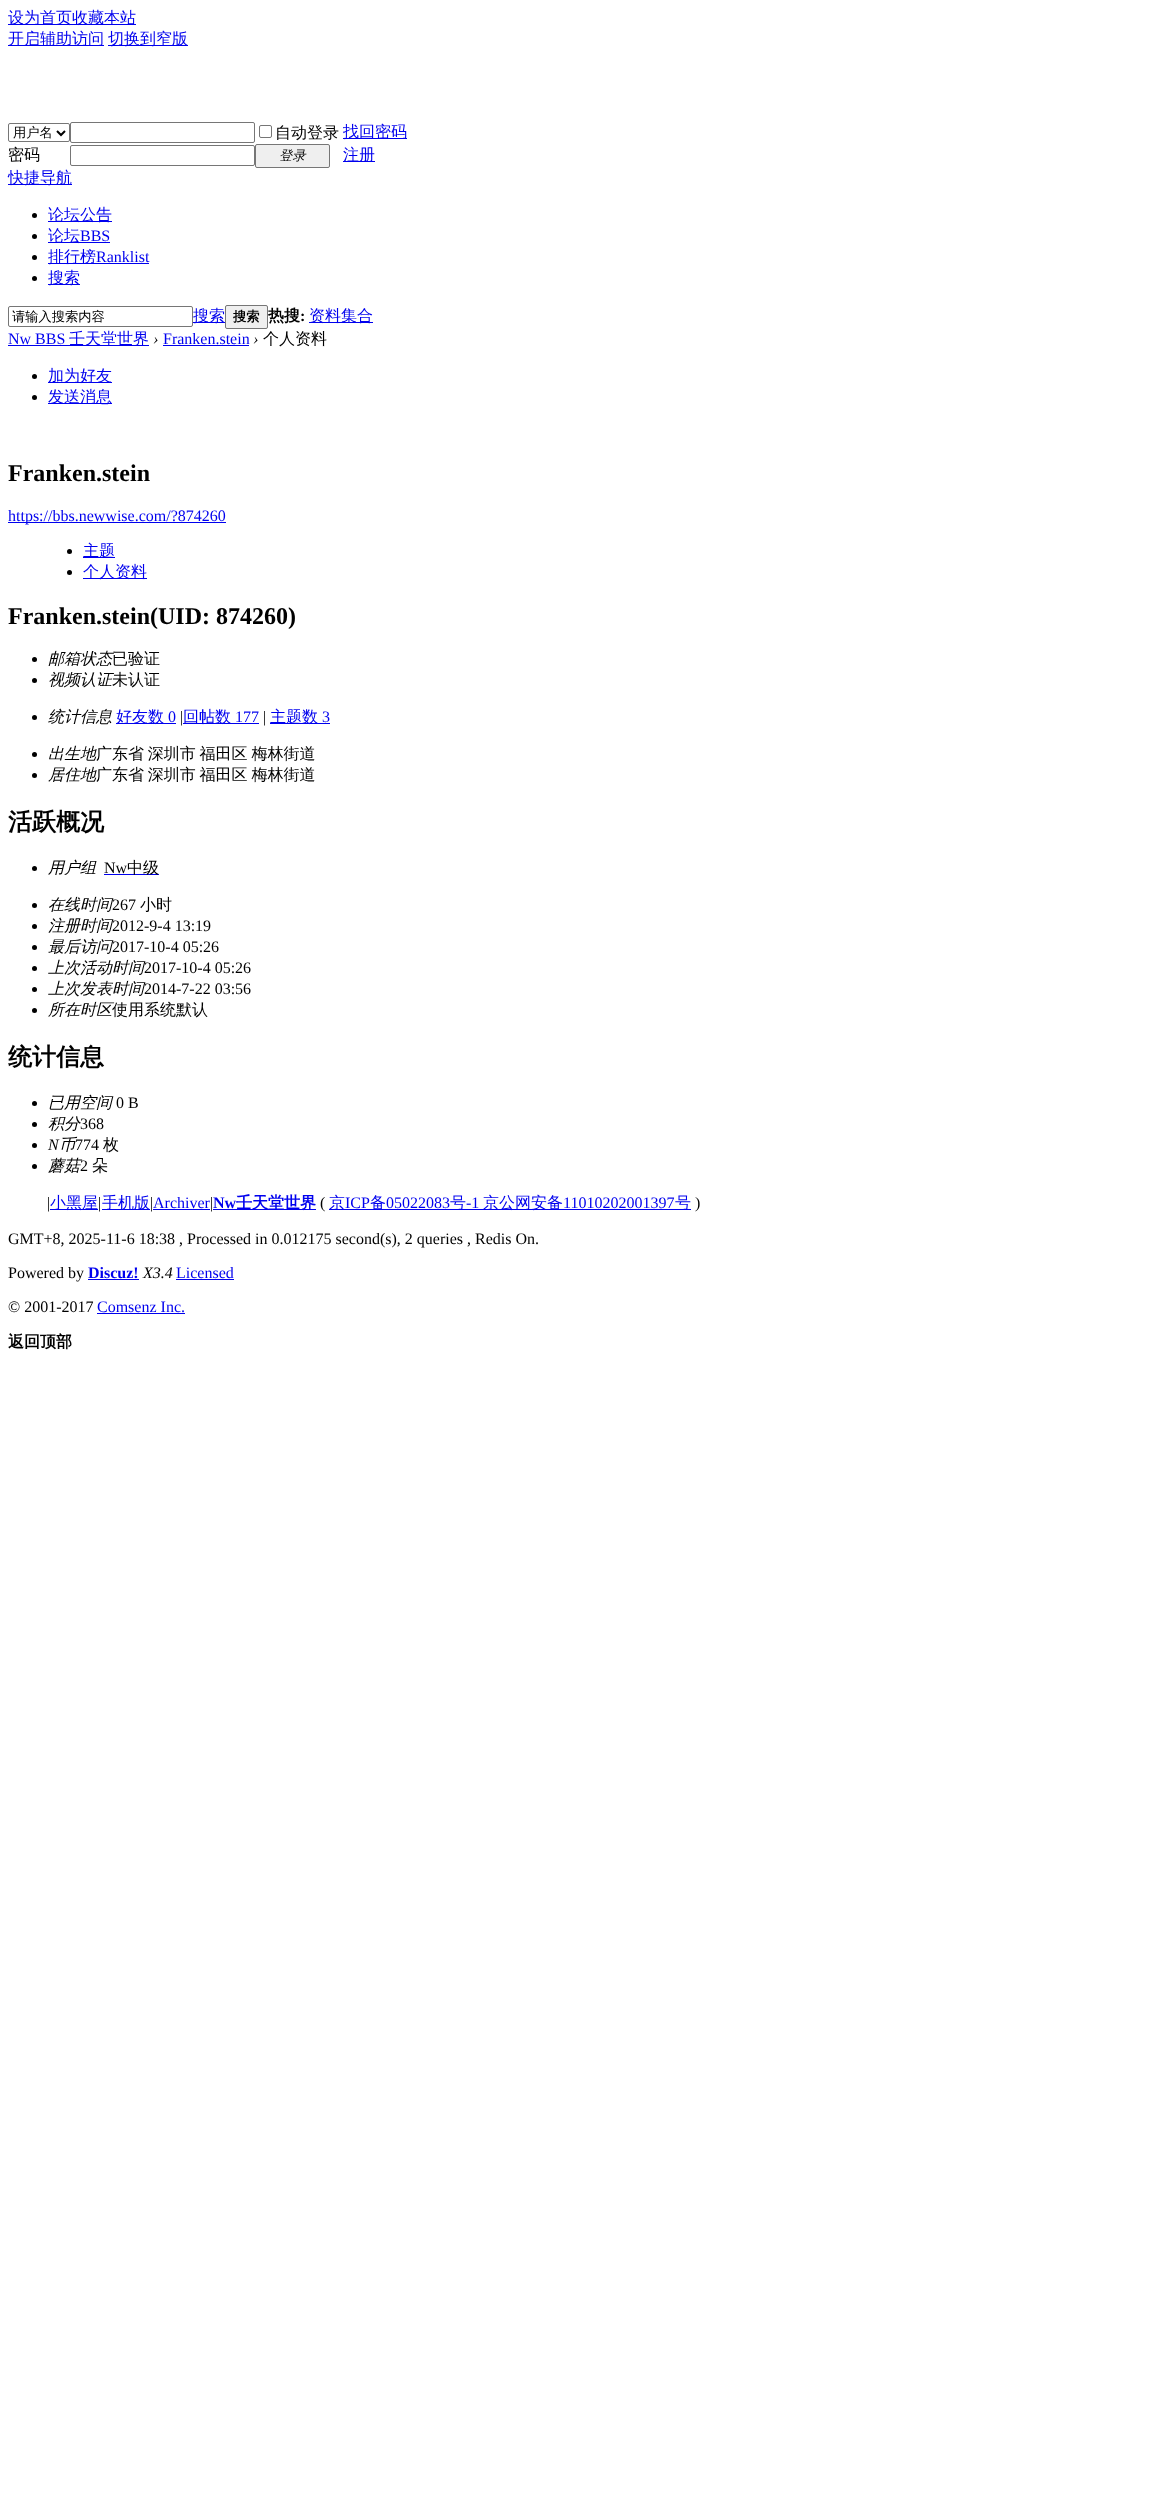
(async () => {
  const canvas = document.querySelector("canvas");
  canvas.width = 1159;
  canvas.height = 2509;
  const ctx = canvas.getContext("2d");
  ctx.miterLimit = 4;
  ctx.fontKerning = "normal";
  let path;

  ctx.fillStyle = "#ffffff";
  ctx.fillRect(0, 0, 1159, 2509);
  for (const [x, y, w, h, color] of [
    [8, 24, 128, 1, "#0000ee"],
    [8, 45, 96, 1, "#0000ee"],
    [108, 45, 80, 1, "#0000ee"],
  ]) {
    ctx.fillStyle = color;
    ctx.fillRect(x, y, w, h);
  }
  ctx.beginPath();
  ctx.roundRect(8.5, 123.5, 61, 18, 1.5);
  ctx.strokeStyle = "#767676";
  ctx.stroke();
  path = new Path2D("M57 131L61 135L65 131");
  ctx.strokeStyle = "#000000";
  ctx.lineWidth = 2;
  ctx.stroke(path);
  ctx.beginPath();
  ctx.roundRect(70.5, 122.5, 184, 20, 1.5);
  ctx.strokeStyle = "#767676";
  ctx.lineWidth = 1;
  ctx.stroke();
  ctx.beginPath();
  ctx.roundRect(259.5, 125.5, 12, 12, 1.5);
  ctx.stroke();
  ctx.fillRect(343, 138, 64, 1);
  ctx.beginPath();
  ctx.roundRect(70.5, 145.5, 184, 20, 1.5);
  ctx.stroke();
  ctx.fillStyle = "#efefef";
  ctx.beginPath();
  ctx.roundRect(255.5, 144.5, 74, 23, 1.5);
  ctx.fill();
  ctx.stroke();
  ctx.fillStyle = "#0000ee";
  ctx.fillRect(343, 161, 32, 1);
  ctx.fillRect(8, 184, 64, 1);
  ctx.fillStyle = "#000000";
  ctx.beginPath();
  ctx.arc(34.5, 215.5, 2.5, 0, Math.PI * 2);
  ctx.fill();
  ctx.fillStyle = "#0000ee";
  ctx.fillRect(48, 221, 64, 1);
  ctx.fillStyle = "#000000";
  ctx.beginPath();
  ctx.arc(34.5, 236.5, 2.5, 0, Math.PI * 2);
  ctx.fill();
  ctx.fillStyle = "#0000ee";
  ctx.fillRect(48, 242, 62, 1);
  ctx.fillStyle = "#000000";
  ctx.beginPath();
  ctx.arc(34.5, 257.5, 2.5, 0, Math.PI * 2);
  ctx.fill();
  ctx.fillStyle = "#0000ee";
  ctx.fillRect(48, 263, 101, 1);
  ctx.fillStyle = "#000000";
  ctx.beginPath();
  ctx.arc(34.5, 278.5, 2.5, 0, Math.PI * 2);
  ctx.fill();
  ctx.fillStyle = "#0000ee";
  ctx.fillRect(48, 284, 32, 1);
  ctx.beginPath();
  ctx.roundRect(8.5, 306.5, 184, 20, 1.5);
  ctx.stroke();
  ctx.fillRect(193, 322, 32, 1);
  ctx.fillStyle = "#efefef";
  ctx.beginPath();
  ctx.roundRect(225.5, 305.5, 42, 23, 1.5);
  ctx.fill();
  ctx.stroke();
  for (const [x, y, w, h, color] of [
    [309, 322, 64, 1, "#0000ee"],
    [8, 345, 141, 1, "#0000ee"],
    [163, 345, 86, 1, "#0000ee"],
  ]) {
    ctx.fillStyle = color;
    ctx.fillRect(x, y, w, h);
  }
  ctx.fillStyle = "#000000";
  ctx.beginPath();
  ctx.arc(34.5, 376.5, 2.5, 0, Math.PI * 2);
  ctx.fill();
  ctx.fillStyle = "#0000ee";
  ctx.fillRect(48, 382, 64, 1);
  ctx.fillStyle = "#000000";
  ctx.beginPath();
  ctx.arc(34.5, 397.5, 2.5, 0, Math.PI * 2);
  ctx.fill();
  ctx.fillStyle = "#0000ee";
  ctx.fillRect(48, 403, 64, 1);
  ctx.fillRect(8, 522, 218, 1);
  ctx.fillStyle = "#000000";
  ctx.beginPath();
  ctx.arc(69.5, 551.5, 2.5, 0, Math.PI * 2);
  ctx.fill();
  ctx.fillStyle = "#0000ee";
  ctx.fillRect(83, 557, 32, 1);
  ctx.fillStyle = "#000000";
  ctx.beginPath();
  ctx.arc(69.5, 572.5, 2.5, 0, Math.PI * 2);
  ctx.fill();
  ctx.fillStyle = "#0000ee";
  ctx.fillRect(83, 578, 64, 1);
  ctx.fillStyle = "#000000";
  ctx.beginPath();
  ctx.arc(34.5, 659.5, 2.5, 0, Math.PI * 2);
  ctx.fill();
  ctx.beginPath();
  ctx.arc(34.5, 680.5, 2.5, 0, Math.PI * 2);
  ctx.fill();
  ctx.beginPath();
  ctx.arc(34.5, 717.5, 2.5, 0, Math.PI * 2);
  ctx.fill();
  for (const [x, y, w, h, color] of [
    [116, 723, 60, 1, "#0000ee"],
    [183, 723, 76, 1, "#0000ee"],
    [270, 723, 60, 1, "#0000ee"],
  ]) {
    ctx.fillStyle = color;
    ctx.fillRect(x, y, w, h);
  }
  ctx.fillStyle = "#000000";
  ctx.beginPath();
  ctx.arc(34.5, 754.5, 2.5, 0, Math.PI * 2);
  ctx.fill();
  ctx.beginPath();
  ctx.arc(34.5, 775.5, 2.5, 0, Math.PI * 2);
  ctx.fill();
  ctx.beginPath();
  ctx.arc(34.5, 868.5, 2.5, 0, Math.PI * 2);
  ctx.fill();
  ctx.fillStyle = "#0000ee";
  ctx.fillRect(104, 874, 55, 1);
  ctx.fillStyle = "#000000";
  ctx.beginPath();
  ctx.arc(34.5, 905.5, 2.5, 0, Math.PI * 2);
  ctx.fill();
  ctx.beginPath();
  ctx.arc(34.5, 926.5, 2.5, 0, Math.PI * 2);
  ctx.fill();
  ctx.beginPath();
  ctx.arc(34.5, 947.5, 2.5, 0, Math.PI * 2);
  ctx.fill();
  ctx.beginPath();
  ctx.arc(34.5, 968.5, 2.5, 0, Math.PI * 2);
  ctx.fill();
  ctx.beginPath();
  ctx.arc(34.5, 989.5, 2.5, 0, Math.PI * 2);
  ctx.fill();
  ctx.beginPath();
  ctx.arc(34.5, 1010.5, 2.5, 0, Math.PI * 2);
  ctx.fill();
  ctx.beginPath();
  ctx.arc(34.5, 1103.5, 2.5, 0, Math.PI * 2);
  ctx.fill();
  ctx.beginPath();
  ctx.arc(34.5, 1124.5, 2.5, 0, Math.PI * 2);
  ctx.fill();
  ctx.beginPath();
  ctx.arc(34.5, 1145.5, 2.5, 0, Math.PI * 2);
  ctx.fill();
  ctx.beginPath();
  ctx.arc(34.5, 1166.5, 2.5, 0, Math.PI * 2);
  ctx.fill();
  for (const [x, y, w, h, color] of [
    [50, 1209, 48, 1, "#0000ee"],
    [102, 1209, 48, 1, "#0000ee"],
    [153, 1209, 57, 1, "#0000ee"],
    [213, 1209, 103, 1, "#0000ee"],
    [329, 1209, 362, 1, "#0000ee"],
    [88, 1279, 51, 1, "#0000ee"],
    [176, 1279, 58, 1, "#0000ee"],
    [97, 1313, 88, 1, "#0000ee"],
  ]) {
    ctx.fillStyle = color;
    ctx.fillRect(x, y, w, h);
  }
  ctx.font = "500 16px WenQuanYi Zen Hei";
  for (const [text, x, y] of [
    ["设为首页收藏本站", 8, 23],
    ["开启辅助访问", 8, 44],
    ["切换到窄版", 108, 44],
  ]) {
    ctx.fillText(text, x, y);
  }
  ctx.font = "500 13.25px WenQuanYi Zen Hei";
  ctx.fillStyle = "#000000";
  ctx.fillText("用户名", 13, 137);
  ctx.font = "500 16px WenQuanYi Zen Hei";
  ctx.fillText("自动登录", 275, 138);
  ctx.fillStyle = "#0000ee";
  ctx.fillText("找回密码", 343, 137);
  ctx.fillStyle = "#000000";
  ctx.fillText("密码", 8, 160);
  ctx.font = "italic 500 13.25px WenQuanYi Zen Hei";
  ctx.fillText("登录", 279, 160);
  ctx.font = "500 16px WenQuanYi Zen Hei";
  ctx.fillStyle = "#0000ee";
  for (const [text, x, y] of [
    ["注册", 343, 160],
    ["快捷导航", 8, 183],
    ["论坛公告", 48, 220],
    ["论坛", 48, 241],
  ]) {
    ctx.fillText(text, x, y);
  }
  ctx.font = "16px Liberation Serif";
  ctx.fillText("BBS", 80, 241);
  ctx.font = "500 16px WenQuanYi Zen Hei";
  ctx.fillText("排行榜", 48, 262);
  ctx.font = "16px Liberation Serif";
  ctx.fillText("Ranklist", 96, 262);
  ctx.font = "500 16px WenQuanYi Zen Hei";
  ctx.fillText("搜索", 48, 283);
  ctx.font = "500 13.25px WenQuanYi Zen Hei";
  ctx.fillStyle = "#000000";
  ctx.fillText("请输入搜索内容", 12, 321);
  ctx.font = "500 16px WenQuanYi Zen Hei";
  ctx.fillStyle = "#0000ee";
  ctx.fillText("搜索", 193, 321);
  ctx.font = "bold 13.25px WenQuanYi Zen Hei";
  ctx.fillStyle = "#000000";
  ctx.fillText("搜索", 233, 321);
  ctx.font = "bold 16px WenQuanYi Zen Hei";
  ctx.fillText("热搜", 268, 321);
  ctx.font = "bold 16px Liberation Serif";
  ctx.fillText(":", 300, 321);
  ctx.font = "500 16px WenQuanYi Zen Hei";
  ctx.fillStyle = "#0000ee";
  ctx.fillText("资料集合", 309, 321);
  ctx.font = "16px Liberation Serif";
  ctx.fillText("Nw BBS", 8, 344);
  ctx.font = "500 16px WenQuanYi Zen Hei";
  ctx.fillText("壬天堂世界", 69, 344);
  ctx.font = "italic 16px Liberation Serif";
  ctx.fillStyle = "#000000";
  ctx.fillText("›", 153, 344);
  ctx.font = "16px Liberation Serif";
  ctx.fillStyle = "#0000ee";
  ctx.fillText("Franken.stein", 163, 344);
  ctx.font = "italic 16px Liberation Serif";
  ctx.fillStyle = "#000000";
  ctx.fillText("›", 253, 344);
  ctx.font = "500 16px WenQuanYi Zen Hei";
  ctx.fillText("个人资料", 263, 344);
  ctx.fillStyle = "#0000ee";
  ctx.fillText("加为好友", 48, 381);
  ctx.fillText("发送消息", 48, 402);
  ctx.font = "bold 24px Liberation Serif";
  ctx.fillStyle = "#000000";
  ctx.fillText("Franken.stein", 8, 481);
  ctx.font = "16px Liberation Serif";
  ctx.fillStyle = "#0000ee";
  ctx.fillText("https://bbs.newwise.com/?874260", 8, 521);
  ctx.font = "500 16px WenQuanYi Zen Hei";
  ctx.fillText("主题", 83, 556);
  ctx.fillText("个人资料", 83, 577);
  ctx.font = "bold 24px Liberation Serif";
  ctx.fillStyle = "#000000";
  ctx.fillText("Franken.stein(UID: 874260)", 8, 624);
  ctx.font = "italic 500 16px WenQuanYi Zen Hei";
  ctx.fillText("邮箱状态", 48, 664);
  ctx.font = "500 16px WenQuanYi Zen Hei";
  ctx.fillText("已验证", 112, 664);
  ctx.font = "italic 500 16px WenQuanYi Zen Hei";
  ctx.fillText("视频认证", 48, 685);
  ctx.font = "500 16px WenQuanYi Zen Hei";
  ctx.fillText("未认证", 112, 685);
  ctx.font = "italic 500 16px WenQuanYi Zen Hei";
  ctx.fillText("统计信息", 48, 722);
  ctx.font = "500 16px WenQuanYi Zen Hei";
  ctx.fillStyle = "#0000ee";
  ctx.fillText("好友数", 116, 722);
  ctx.font = "16px Liberation Serif";
  ctx.fillText("0", 168, 722);
  ctx.fillStyle = "#000000";
  ctx.fillText("|", 180, 722);
  ctx.font = "500 16px WenQuanYi Zen Hei";
  ctx.fillStyle = "#0000ee";
  ctx.fillText("回帖数", 183, 722);
  ctx.font = "16px Liberation Serif";
  ctx.fillText("177", 235, 722);
  ctx.fillStyle = "#000000";
  ctx.fillText("|", 263, 722);
  ctx.font = "500 16px WenQuanYi Zen Hei";
  ctx.fillStyle = "#0000ee";
  ctx.fillText("主题数", 270, 722);
  ctx.font = "16px Liberation Serif";
  ctx.fillText("3", 322, 722);
  ctx.font = "italic 500 16px WenQuanYi Zen Hei";
  ctx.fillStyle = "#000000";
  ctx.fillText("出生地", 48, 759);
  ctx.wordSpacing = "-1px";
  ctx.font = "500 16px WenQuanYi Zen Hei";
  ctx.fillText("广东省 深圳市 福田区 梅林街道", 96, 759);
  ctx.wordSpacing = "0px";
  ctx.font = "italic 500 16px WenQuanYi Zen Hei";
  ctx.fillText("居住地", 48, 780);
  ctx.wordSpacing = "-1px";
  ctx.font = "500 16px WenQuanYi Zen Hei";
  ctx.fillText("广东省 深圳市 福田区 梅林街道", 96, 780);
  ctx.wordSpacing = "0px";
  ctx.font = "bold 24px WenQuanYi Zen Hei";
  ctx.fillText("活跃概况", 8, 830);
  ctx.font = "italic 500 16px WenQuanYi Zen Hei";
  ctx.fillText("用户组", 48, 873);
  ctx.font = "16px Liberation Serif";
  ctx.fillText("Nw", 104, 873);
  ctx.font = "500 16px WenQuanYi Zen Hei";
  ctx.fillText("中级", 127, 873);
  ctx.font = "italic 500 16px WenQuanYi Zen Hei";
  ctx.fillText("在线时间", 48, 910);
  ctx.font = "16px Liberation Serif";
  ctx.fillText("267", 112, 910);
  ctx.font = "500 16px WenQuanYi Zen Hei";
  ctx.fillText("小时", 140, 910);
  ctx.font = "italic 500 16px WenQuanYi Zen Hei";
  ctx.fillText("注册时间", 48, 931);
  ctx.font = "16px Liberation Serif";
  ctx.fillText("2012-9-4 13:19", 112, 931);
  ctx.font = "italic 500 16px WenQuanYi Zen Hei";
  ctx.fillText("最后访问", 48, 952);
  ctx.font = "16px Liberation Serif";
  ctx.fillText("2017-10-4 05:26", 112, 952);
  ctx.font = "italic 500 16px WenQuanYi Zen Hei";
  ctx.fillText("上次活动时间", 48, 973);
  ctx.font = "16px Liberation Serif";
  ctx.fillText("2017-10-4 05:26", 144, 973);
  ctx.font = "italic 500 16px WenQuanYi Zen Hei";
  ctx.fillText("上次发表时间", 48, 994);
  ctx.font = "16px Liberation Serif";
  ctx.fillText("2014-7-22 03:56", 144, 994);
  ctx.font = "italic 500 16px WenQuanYi Zen Hei";
  ctx.fillText("所在时区", 48, 1015);
  ctx.font = "500 16px WenQuanYi Zen Hei";
  ctx.fillText("使用系统默认", 112, 1015);
  ctx.font = "bold 24px WenQuanYi Zen Hei";
  ctx.fillText("统计信息", 8, 1065);
  ctx.font = "italic 500 16px WenQuanYi Zen Hei";
  ctx.fillText("已用空间", 48, 1108);
  ctx.font = "16px Liberation Serif";
  ctx.fillText("0 B", 116, 1108);
  ctx.font = "italic 500 16px WenQuanYi Zen Hei";
  ctx.fillText("积分", 48, 1129);
  ctx.font = "16px Liberation Serif";
  ctx.fillText("368", 80, 1129);
  ctx.font = "italic 16px Liberation Serif";
  ctx.fillText("N", 48, 1150);
  ctx.font = "italic 500 16px WenQuanYi Zen Hei";
  ctx.fillText("币", 59, 1150);
  ctx.font = "16px Liberation Serif";
  ctx.fillText("774", 75, 1150);
  ctx.font = "500 16px WenQuanYi Zen Hei";
  ctx.fillText("枚", 103, 1150);
  ctx.font = "italic 500 16px WenQuanYi Zen Hei";
  ctx.fillText("蘑菇", 48, 1171);
  ctx.font = "16px Liberation Serif";
  ctx.fillText("2", 80, 1171);
  ctx.font = "500 16px WenQuanYi Zen Hei";
  ctx.fillText("朵", 92, 1171);
  ctx.font = "16px Liberation Serif";
  ctx.fillText("|", 47, 1208);
  ctx.font = "500 16px WenQuanYi Zen Hei";
  ctx.fillStyle = "#0000ee";
  ctx.fillText("小黑屋", 50, 1208);
  ctx.font = "16px Liberation Serif";
  ctx.fillStyle = "#000000";
  ctx.fillText("|", 98, 1208);
  ctx.font = "500 16px WenQuanYi Zen Hei";
  ctx.fillStyle = "#0000ee";
  ctx.fillText("手机版", 102, 1208);
  ctx.font = "16px Liberation Serif";
  ctx.fillStyle = "#000000";
  ctx.fillText("|", 150, 1208);
  ctx.fillStyle = "#0000ee";
  ctx.fillText("Archiver", 153, 1208);
  ctx.fillStyle = "#000000";
  ctx.fillText("|", 210, 1208);
  ctx.font = "bold 16px Liberation Serif";
  ctx.fillStyle = "#0000ee";
  ctx.fillText("Nw", 213, 1208);
  ctx.font = "bold 16px WenQuanYi Zen Hei";
  ctx.fillText("壬天堂世界", 236, 1208);
  ctx.font = "16px Liberation Serif";
  ctx.fillStyle = "#000000";
  ctx.fillText("(", 320, 1208);
  ctx.font = "500 16px WenQuanYi Zen Hei";
  ctx.fillStyle = "#0000ee";
  ctx.fillText("京", 329, 1208);
  ctx.font = "16px Liberation Serif";
  ctx.fillText("ICP", 345, 1208);
  ctx.font = "500 16px WenQuanYi Zen Hei";
  ctx.fillText("备", 370, 1208);
  ctx.font = "16px Liberation Serif";
  ctx.fillText("05022083", 386, 1208);
  ctx.font = "500 16px WenQuanYi Zen Hei";
  ctx.fillText("号", 450, 1208);
  ctx.font = "16px Liberation Serif";
  ctx.fillText("-1", 466, 1208);
  ctx.font = "500 16px WenQuanYi Zen Hei";
  ctx.fillText("京公网安备", 483, 1208);
  ctx.font = "16px Liberation Serif";
  ctx.fillText("11010202001397", 563, 1208);
  ctx.font = "500 16px WenQuanYi Zen Hei";
  ctx.fillText("号", 675, 1208);
  ctx.font = "16px Liberation Serif";
  ctx.fillStyle = "#000000";
  for (const [text, x, y] of [
    [")", 695, 1208],
    ["GMT+8, 2025-11-6 18:38 , Processed in 0.012175 second(s), 2 queries , Redis On.", 8, 1244],
    ["Powered by", 8, 1278],
  ]) {
    ctx.fillText(text, x, y);
  }
  ctx.font = "bold 16px Liberation Serif";
  ctx.fillStyle = "#0000ee";
  ctx.fillText("Discuz!", 88, 1278);
  ctx.font = "italic 16px Liberation Serif";
  ctx.fillStyle = "#000000";
  ctx.fillText("X3.4", 143, 1278);
  ctx.font = "16px Liberation Serif";
  ctx.fillStyle = "#0000ee";
  ctx.fillText("Licensed", 176, 1278);
  ctx.fillStyle = "#000000";
  ctx.fillText("© 2001-2017", 8, 1312);
  ctx.fillStyle = "#0000ee";
  ctx.fillText("Comsenz Inc.", 97, 1312);
  ctx.font = "bold 16px WenQuanYi Zen Hei";
  ctx.fillStyle = "#000000";
  ctx.fillText("返回顶部", 8, 1347);
})();
